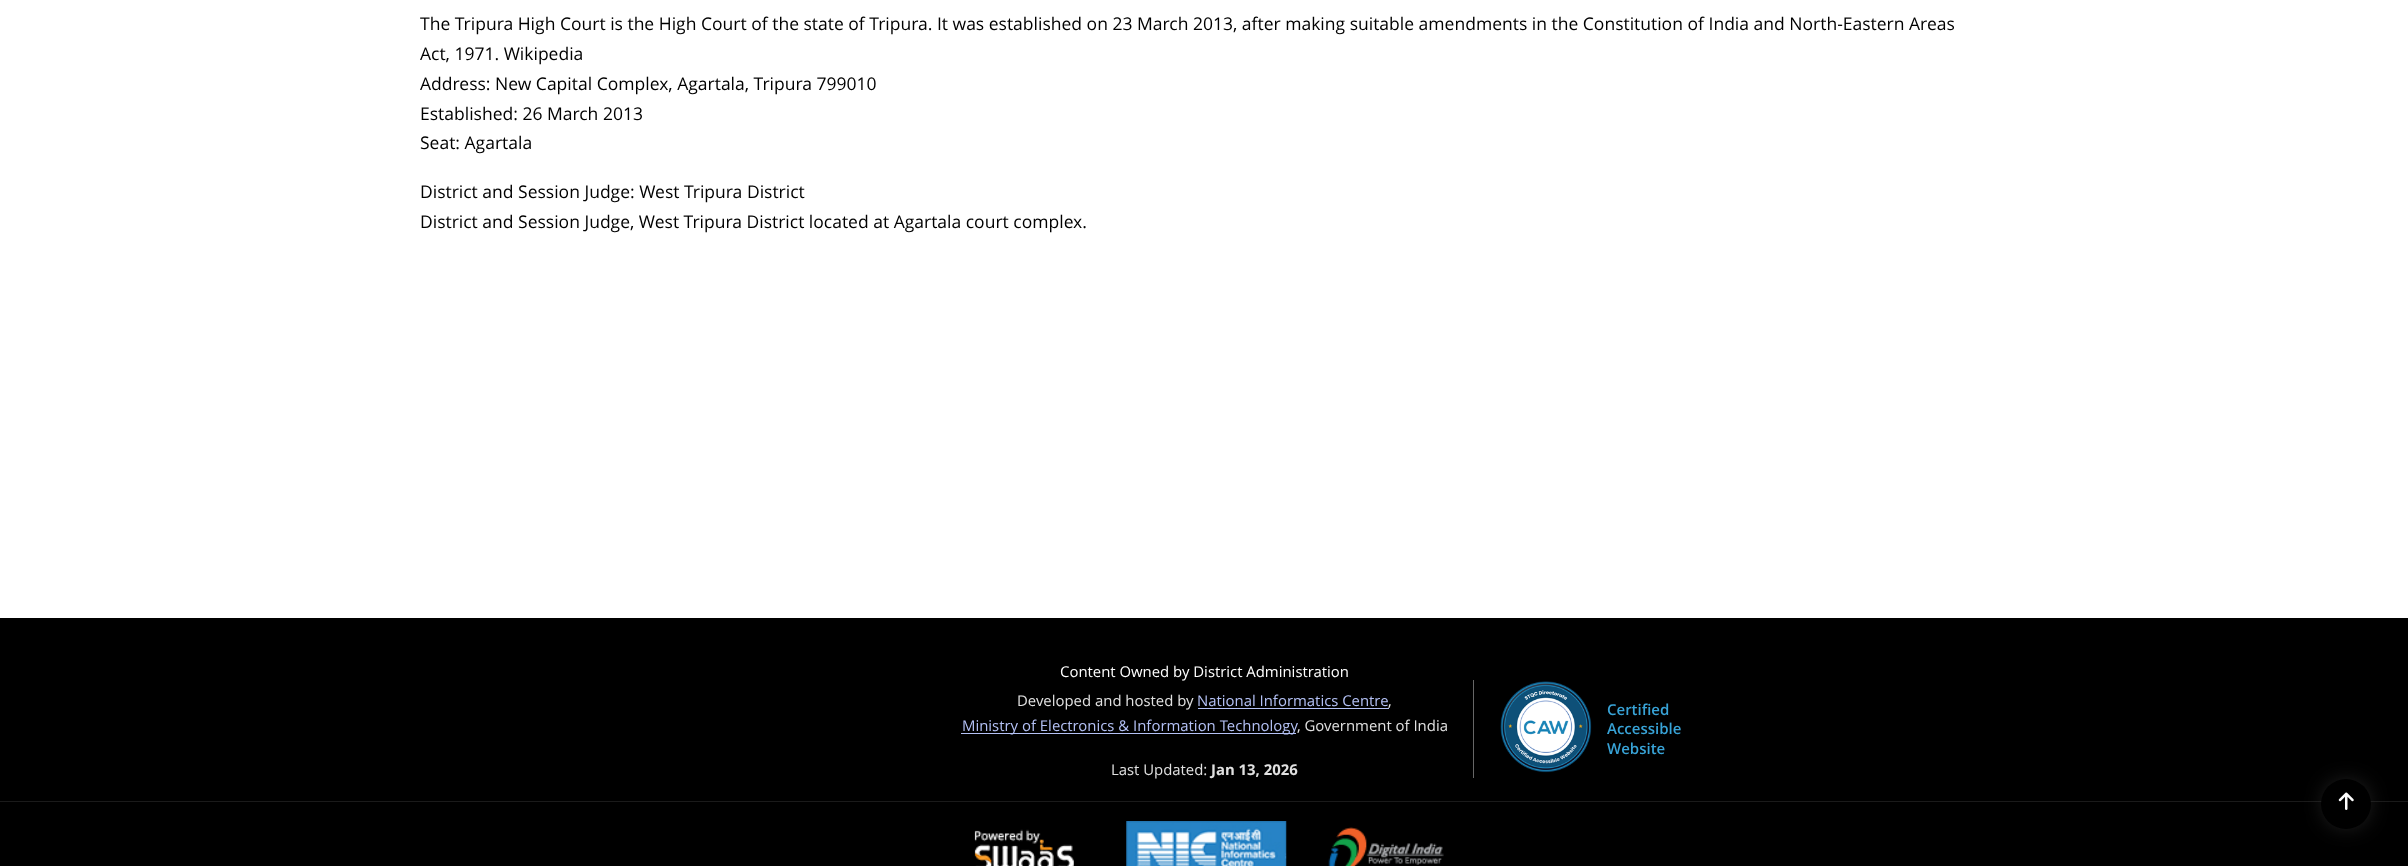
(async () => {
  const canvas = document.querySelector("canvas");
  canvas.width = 2408;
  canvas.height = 866;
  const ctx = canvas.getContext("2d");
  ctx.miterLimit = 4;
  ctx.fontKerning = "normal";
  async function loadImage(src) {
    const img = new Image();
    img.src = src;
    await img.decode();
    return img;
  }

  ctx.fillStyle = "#ffffff";
  ctx.fillRect(0, 0, 2408, 866);
  for (const [x, y, w, h, color] of [
    [0, 618, 2408, 248, "#000000"],
    [1198, 708, 191, 1, "#b4c1f5"],
    [961, 733, 335, 1, "#b4c1f5"],
    [1473, 680, 1, 98, "#666666"],
  ]) {
    ctx.fillStyle = color;
    ctx.fillRect(x, y, w, h);
  }
  ctx.drawImage(await loadImage("img/1.png"), 1500, 681, 92, 92);
  ctx.fillStyle = "#1a1a1a";
  ctx.fillRect(0, 801, 2408, 1);
  ctx.drawImage(await loadImage("img/2.png"), 974, 829, 100, 37);
  ctx.drawImage(await loadImage("img/3.png"), 1126, 821, 161, 45);
  ctx.drawImage(await loadImage("img/4.png"), 1328, 827, 116, 39);
  ctx.fillStyle = "#3c3c3c";
  ctx.filter = "blur(12px)";
  ctx.beginPath();
  ctx.roundRect(2328, 785, 37, 38, 18.5);
  ctx.fill();
  ctx.filter = "none";
  ctx.fillStyle = "#000000";
  ctx.beginPath();
  ctx.arc(2346, 804, 25, 0, Math.PI * 2);
  ctx.fill();
  ctx.drawImage(await loadImage("img/5.png"), 2338, 792, 16, 18);
  ctx.font = "17.5px Open Sans";
  for (const [text, x, y] of [
    ["The Tripura High Court is the High Court of the state of Tripura. It was established on 23 March 2013, after making suitable amendments in the Constitution of India and North-Eastern Areas", 420, 30],
    ["Act, 1971. Wikipedia", 420, 60],
    ["Address: New Capital Complex, Agartala, Tripura 799010", 420, 90],
    ["Established: 26 March 2013", 420, 120],
    ["Seat: Agartala", 420, 149],
    ["District and Session Judge: West Tripura District", 420, 198],
    ["District and Session Judge, West Tripura District located at Agartala court complex.", 420, 228],
  ]) {
    ctx.fillText(text, x, y);
  }
  ctx.font = "14.9px Open Sans";
  ctx.fillStyle = "#ffffff";
  ctx.fillText("Content Owned by District Administration", 1060, 677);
  ctx.fillStyle = "#e1e1e1";
  ctx.fillText("Developed and hosted by", 1017, 706);
  ctx.fillStyle = "#b4c1f5";
  ctx.fillText("National Informatics Centre", 1197, 706);
  ctx.fillStyle = "#e1e1e1";
  ctx.fillText(",", 1388, 706);
  ctx.fillStyle = "#b4c1f5";
  ctx.fillText("Ministry of Electronics & Information Technology", 962, 731);
  ctx.fillStyle = "#e1e1e1";
  ctx.fillText(", Government of India", 1297, 731);
  ctx.font = "600 15px Open Sans";
  ctx.fillStyle = "#38a3d7";
  for (const [text, x, y] of [
    ["Certified", 1607, 715],
    ["Accessible", 1607, 734],
    ["Website", 1607, 754],
  ]) {
    ctx.fillText(text, x, y);
  }
  ctx.font = "14.9px Open Sans";
  ctx.fillStyle = "#e1e1e1";
  ctx.fillText("Last Updated:", 1111, 775);
  ctx.font = "bold 14.9px Open Sans";
  ctx.fillText("Jan 13, 2026", 1211, 775);
})();
